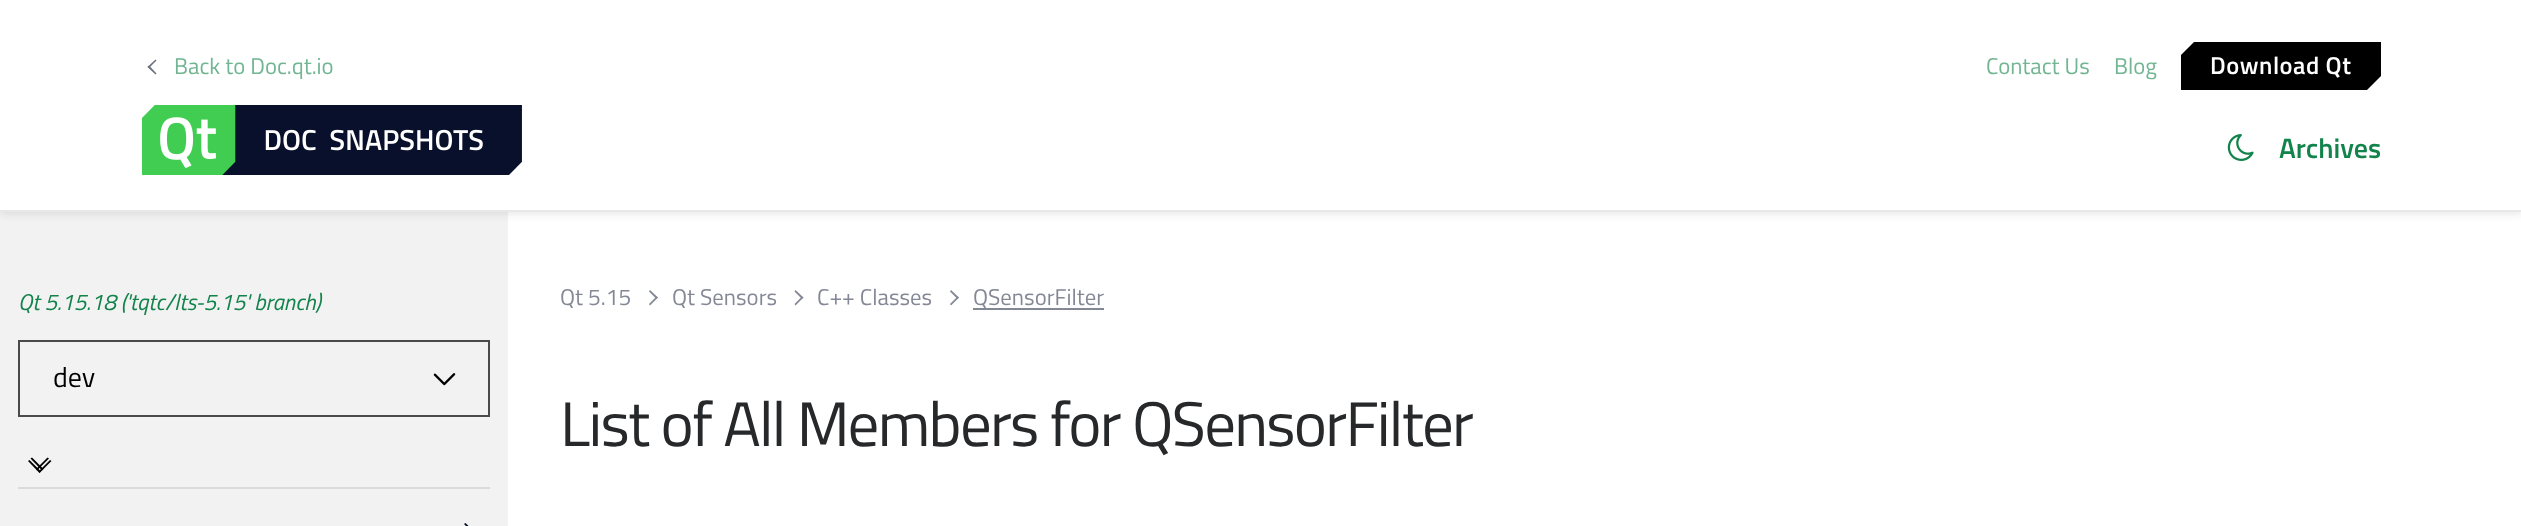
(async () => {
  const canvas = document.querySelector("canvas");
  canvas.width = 2521;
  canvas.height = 526;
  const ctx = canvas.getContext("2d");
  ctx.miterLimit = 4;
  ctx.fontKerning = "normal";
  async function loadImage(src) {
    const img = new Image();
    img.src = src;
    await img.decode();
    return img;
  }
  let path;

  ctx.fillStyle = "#ffffff";
  ctx.fillRect(0, 0, 2521, 526);
  ctx.fillStyle = "#f2f2f2";
  ctx.fillRect(0, 212, 508, 314);
  ctx.fillStyle = "rgba(9, 16, 43, 0.1)";
  ctx.filter = "blur(4.5px)";
  ctx.beginPath();
  ctx.rect(0, 2, 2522, 212);
  ctx.fill();
  ctx.filter = "none";
  ctx.fillStyle = "#ffffff";
  ctx.fillRect(0, 0, 2521, 210);
  ctx.fillStyle = "#e8e8e8";
  ctx.fillRect(0, 210, 2521, 2);
  ctx.fillStyle = "#6b7080";
  path = new Path2D("M156.5 73.5L155.5 74.5L147.5 67L149 65.5Z");
  ctx.fill(path);
  path = new Path2D("M156.5 60.5L149 68L147.5 67L155.5 59.5Z");
  ctx.fill(path);
  ctx.fillStyle = "#000000";
  path = new Path2D("M2181 55L2194 42H2381V76L2367 90H2181Z");
  ctx.fill(path);
  ctx.drawImage(await loadImage("img/1.png"), 142, 105, 380, 70);
  ctx.drawImage(await loadImage("img/2.png"), 2227, 134, 27, 27);
  ctx.drawImage(await loadImage("img/3.png"), 433, 373, 23, 13);
  ctx.strokeStyle = "#4a4a4a";
  ctx.lineWidth = 2;
  ctx.strokeRect(19, 341, 470, 75);
  path = new Path2D("M47.5 457.5L49 458.5L37 470.5L36 469Z");
  ctx.fill(path);
  path = new Path2D("M50 460L51.5 461L39.5 473L38.5 471.5Z");
  ctx.fill(path);
  path = new Path2D("M32 457.5L43.5 469L42 470.5L30.5 458.5Z");
  ctx.fill(path);
  path = new Path2D("M29.5 460L41 471.5L39.5 473L28 461Z");
  ctx.fill(path);
  ctx.fillStyle = "#dbdbde";
  ctx.fillRect(18, 487, 472, 2);
  ctx.fillStyle = "#09102b";
  path = new Path2D("M464 524L465.5 523L475.5 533L474 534.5Z");
  ctx.fill(path);
  ctx.fillStyle = "#848895";
  path = new Path2D("M649 291.5L650 290L658 297.5L656.5 299Z");
  ctx.fill(path);
  path = new Path2D("M649 304L656.5 296.5L658 297.5L650 305.5Z");
  ctx.fill(path);
  path = new Path2D("M794.5 291.5L795.5 290L803.5 297.5L802 299Z");
  ctx.fill(path);
  path = new Path2D("M794.5 304L802 296.5L803.5 297.5L795.5 305.5Z");
  ctx.fill(path);
  path = new Path2D("M950 291.5L951 290L959 297.5L957.5 299Z");
  ctx.fill(path);
  path = new Path2D("M950 304L957.5 296.5L959 297.5L951 305.5Z");
  ctx.fill(path);
  ctx.fillRect(973, 308, 131, 2);
  ctx.font = "22.75px Titillium Web";
  ctx.fillStyle = "#71b593";
  for (const [text, x, y] of [
    ["Back to Doc.qt.io", 174, 74],
    ["Contact Us", 1986, 74],
    ["Blog", 2114, 74],
  ]) {
    ctx.fillText(text, x, y);
  }
  ctx.letterSpacing = "0.5px";
  ctx.font = "600 24.5px Titillium Web";
  ctx.fillStyle = "#ffffff";
  ctx.fillText("Download Qt", 2210, 74);
  ctx.letterSpacing = "0px";
  ctx.font = "600 28px Titillium Web";
  ctx.fillStyle = "#12834b";
  ctx.fillText("Archives", 2279, 158);
  ctx.font = "italic 22.75px Titillium Web";
  ctx.fillText("Qt 5.15.18 ('tqtc/lts-5.15' branch)", 18, 310);
  ctx.font = "28px Titillium Web";
  ctx.fillStyle = "#000000";
  ctx.fillText("dev", 53, 387);
  ctx.font = "22.75px Titillium Web";
  ctx.fillStyle = "#848895";
  for (const [text, x, y] of [
    ["Qt 5.15", 560, 305],
    ["Qt Sensors", 672, 305],
    ["C++ Classes", 817, 305],
    ["QSensorFilter", 973, 305],
  ]) {
    ctx.fillText(text, x, y);
  }
  ctx.letterSpacing = "-1.75px";
  ctx.font = "63px Titillium Web";
  ctx.fillStyle = "#26282a";
  ctx.fillText("List of All Members for QSensorFilter", 560, 446);
})();
